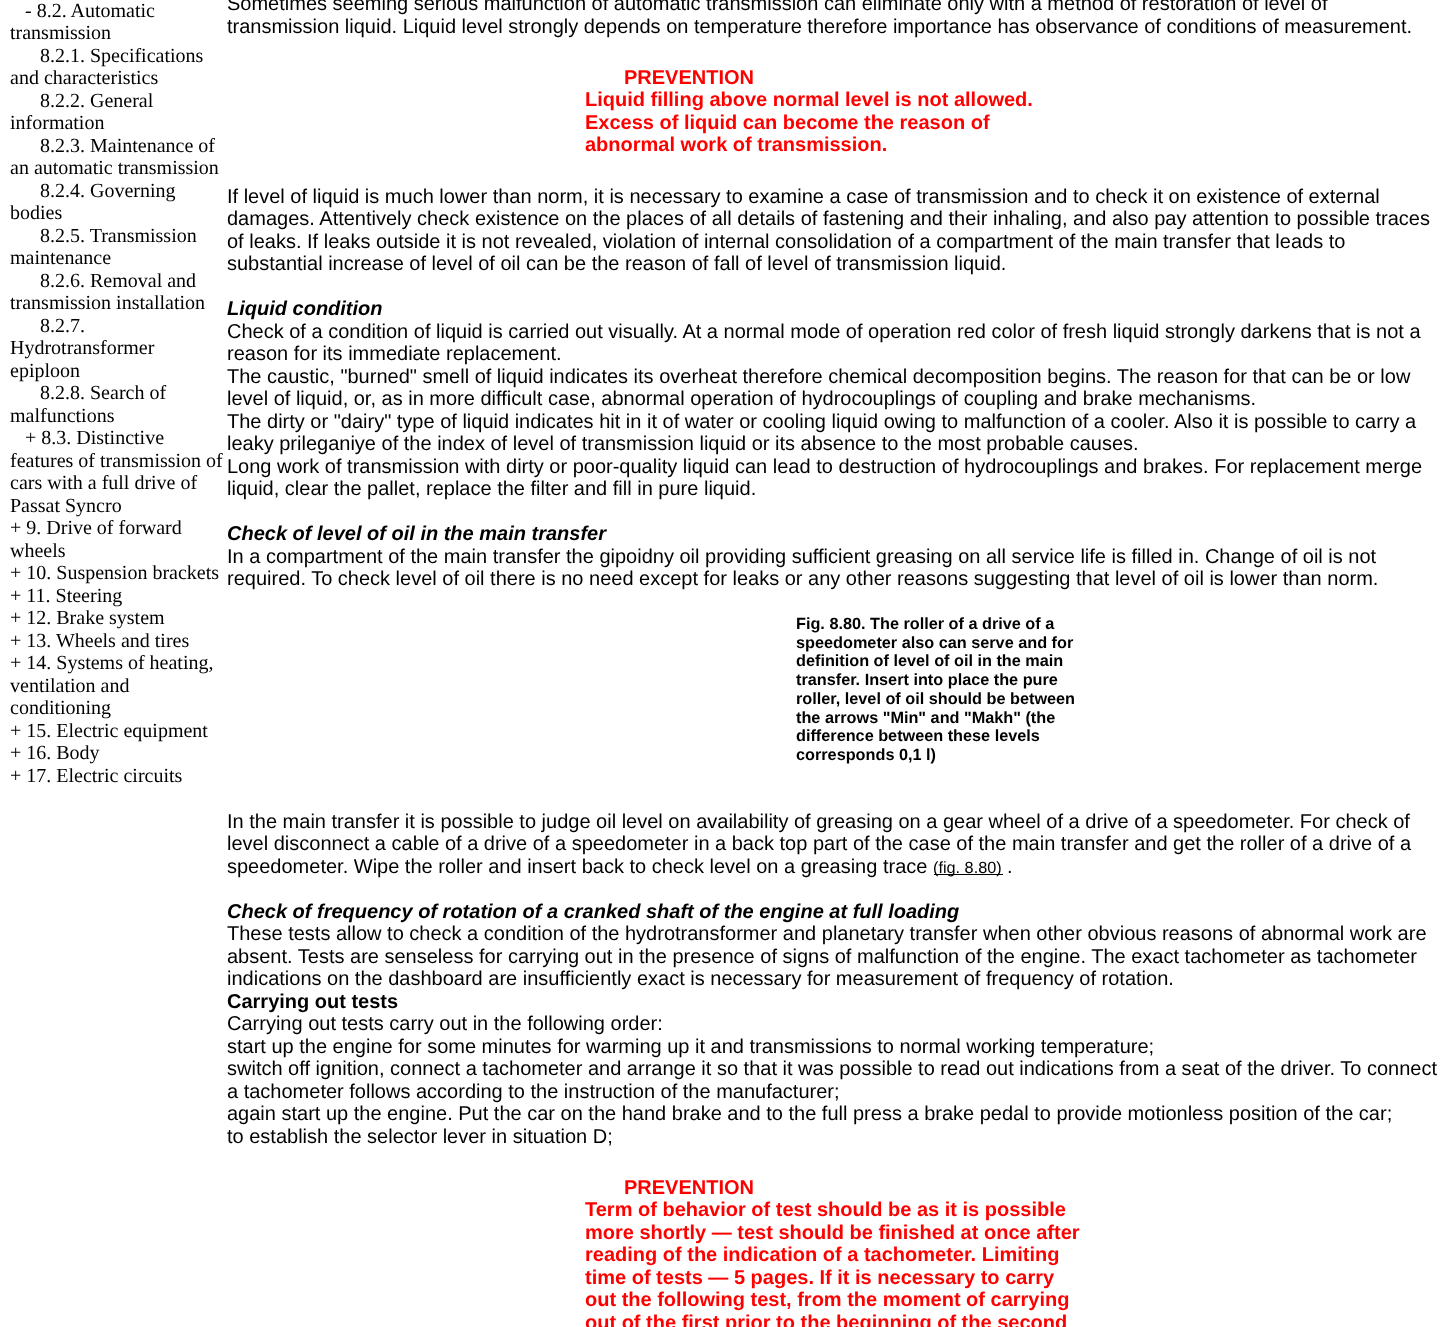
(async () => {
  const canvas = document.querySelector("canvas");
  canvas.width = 1452;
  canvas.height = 1327;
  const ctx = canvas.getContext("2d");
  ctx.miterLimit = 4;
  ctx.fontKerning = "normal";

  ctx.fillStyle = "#ffffff";
  ctx.fillRect(0, 0, 1452, 1327);
  ctx.fillStyle = "#000000";
  ctx.fillRect(934, 874, 69, 1);
  ctx.font = "20px Liberation Serif";
  for (const [text, x, y] of [
    ["- 8.2. Automatic", 25, 17],
    ["transmission", 10, 39],
    ["8.2.1. Specifications", 40, 62],
    ["and characteristics", 10, 84],
    ["8.2.2. General", 40, 107],
    ["information", 10, 129],
    ["8.2.3. Maintenance of", 40, 152],
    ["an automatic transmission", 10, 174],
    ["8.2.4. Governing", 40, 197],
    ["bodies", 10, 219],
    ["8.2.5. Transmission", 40, 242],
    ["maintenance", 10, 264],
    ["8.2.6. Removal and", 40, 287],
    ["transmission installation", 10, 309],
    ["8.2.7.", 40, 332],
    ["Hydrotransformer", 10, 354],
    ["epiploon", 10, 377],
    ["8.2.8. Search of", 40, 399],
    ["malfunctions", 10, 422],
    ["+ 8.3. Distinctive", 25, 444],
    ["features of transmission of", 10, 467],
    ["cars with a full drive of", 10, 489],
    ["Passat Syncro", 10, 512],
    ["+ 9. Drive of forward", 10, 534],
    ["wheels", 10, 557],
    ["+ 10. Suspension brackets", 10, 579],
    ["+ 11. Steering", 10, 602],
    ["+ 12. Brake system", 10, 624],
    ["+ 13. Wheels and tires", 10, 647],
    ["+ 14. Systems of heating,", 10, 669],
    ["ventilation and", 10, 692],
    ["conditioning", 10, 714],
    ["+ 15. Electric equipment", 10, 737],
    ["+ 16. Body", 10, 759],
    ["+ 17. Electric circuits", 10, 782],
  ]) {
    ctx.fillText(text, x, y);
  }
  ctx.font = "20px Liberation Sans";
  ctx.fillText("Sometimes seeming serious malfunction of automatic transmission can eliminate only with a method of restoration of level of", 227, 10);
  ctx.fillText("transmission liquid. Liquid level strongly depends on temperature therefore importance has observance of conditions of measurement.", 227, 33);
  ctx.font = "bold 20px Liberation Sans";
  ctx.fillStyle = "#ff0000";
  for (const [text, x, y] of [
    ["PREVENTION", 624, 84],
    ["Liquid filling above normal level is not allowed.", 585, 106],
    ["Excess of liquid can become the reason of", 585, 129],
    ["abnormal work of transmission.", 585, 151],
  ]) {
    ctx.fillText(text, x, y);
  }
  ctx.font = "20px Liberation Sans";
  ctx.fillStyle = "#000000";
  for (const [text, x, y] of [
    ["If level of liquid is much lower than norm, it is necessary to examine a case of transmission and to check it on existence of external", 227, 203],
    ["damages. Attentively check existence on the places of all details of fastening and their inhaling, and also pay attention to possible traces", 227, 225],
    ["of leaks. If leaks outside it is not revealed, violation of internal consolidation of a compartment of the main transfer that leads to", 227, 248],
    ["substantial increase of level of oil can be the reason of fall of level of transmission liquid.", 227, 270],
  ]) {
    ctx.fillText(text, x, y);
  }
  ctx.font = "italic bold 20px Liberation Sans";
  ctx.fillText("Liquid condition", 227, 315);
  ctx.font = "20px Liberation Sans";
  for (const [text, x, y] of [
    ["Check of a condition of liquid is carried out visually. At a normal mode of operation red color of fresh liquid strongly darkens that is not a", 227, 338],
    ["reason for its immediate replacement.", 227, 360],
    ["The caustic, \"burned\" smell of liquid indicates its overheat therefore chemical decomposition begins. The reason for that can be or low", 227, 383],
    ["level of liquid, or, as in more difficult case, abnormal operation of hydrocouplings of coupling and brake mechanisms.", 227, 405],
    ["The dirty or \"dairy\" type of liquid indicates hit in it of water or cooling liquid owing to malfunction of a cooler. Also it is possible to carry a", 227, 428],
    ["leaky prileganiye of the index of level of transmission liquid or its absence to the most probable causes.", 227, 450],
    ["Long work of transmission with dirty or poor-quality liquid can lead to destruction of hydrocouplings and brakes. For replacement merge", 227, 473],
    ["liquid, clear the pallet, replace the filter and fill in pure liquid.", 227, 495],
  ]) {
    ctx.fillText(text, x, y);
  }
  ctx.font = "italic bold 20px Liberation Sans";
  ctx.fillText("Check of level of oil in the main transfer", 227, 540);
  ctx.font = "20px Liberation Sans";
  ctx.fillText("In a compartment of the main transfer the gipoidny oil providing sufficient greasing on all service life is filled in. Change of oil is not", 227, 563);
  ctx.fillText("required. To check level of oil there is no need except for leaks or any other reasons suggesting that level of oil is lower than norm.", 227, 585);
  ctx.font = "bold 16.25px Liberation Sans";
  for (const [text, x, y] of [
    ["Fig. 8.80. The roller of a drive of a", 796, 629],
    ["speedometer also can serve and for", 796, 648],
    ["definition of level of oil in the main", 796, 666],
    ["transfer. Insert into place the pure", 796, 685],
    ["roller, level of oil should be between", 796, 704],
    ["the arrows \"Min\" and \"Makh\" (the", 796, 723],
    ["difference between these levels", 796, 741],
    ["corresponds 0,1 l)", 796, 760],
  ]) {
    ctx.fillText(text, x, y);
  }
  ctx.font = "20px Liberation Sans";
  for (const [text, x, y] of [
    ["In the main transfer it is possible to judge oil level on availability of greasing on a gear wheel of a drive of a speedometer. For check of", 227, 828],
    ["level disconnect a cable of a drive of a speedometer in a back top part of the case of the main transfer and get the roller of a drive of a", 227, 850],
    ["speedometer. Wipe the roller and insert back to check level on a greasing trace", 227, 873],
  ]) {
    ctx.fillText(text, x, y);
  }
  ctx.font = "16.25px Liberation Sans";
  ctx.fillText("(fig. 8.80)", 933, 873);
  ctx.font = "20px Liberation Sans";
  ctx.fillText(".", 1007, 873);
  ctx.font = "italic bold 20px Liberation Sans";
  ctx.fillText("Check of frequency of rotation of a cranked shaft of the engine at full loading", 227, 918);
  ctx.font = "20px Liberation Sans";
  for (const [text, x, y] of [
    ["These tests allow to check a condition of the hydrotransformer and planetary transfer when other obvious reasons of abnormal work are", 227, 940],
    ["absent. Tests are senseless for carrying out in the presence of signs of malfunction of the engine. The exact tachometer as tachometer", 227, 963],
    ["indications on the dashboard are insufficiently exact is necessary for measurement of frequency of rotation.", 227, 985],
  ]) {
    ctx.fillText(text, x, y);
  }
  ctx.font = "bold 20px Liberation Sans";
  ctx.fillText("Carrying out tests", 227, 1008);
  ctx.font = "20px Liberation Sans";
  for (const [text, x, y] of [
    ["Carrying out tests carry out in the following order:", 227, 1030],
    ["start up the engine for some minutes for warming up it and transmissions to normal working temperature;", 227, 1053],
    ["switch off ignition, connect a tachometer and arrange it so that it was possible to read out indications from a seat of the driver. To connect", 227, 1075],
    ["a tachometer follows according to the instruction of the manufacturer;", 227, 1098],
    ["again start up the engine. Put the car on the hand brake and to the full press a brake pedal to provide motionless position of the car;", 227, 1120],
    ["to establish the selector lever in situation D;", 227, 1143],
  ]) {
    ctx.fillText(text, x, y);
  }
  ctx.font = "bold 20px Liberation Sans";
  ctx.fillStyle = "#ff0000";
  for (const [text, x, y] of [
    ["PREVENTION", 624, 1194],
    ["Term of behavior of test should be as it is possible", 585, 1216],
    ["more shortly — test should be finished at once after", 585, 1239],
    ["reading of the indication of a tachometer. Limiting", 585, 1261],
    ["time of tests — 5 pages. If it is necessary to carry", 585, 1284],
    ["out the following test, from the moment of carrying", 585, 1306],
    ["out of the first prior to the beginning of the second", 585, 1329],
  ]) {
    ctx.fillText(text, x, y);
  }
})();
